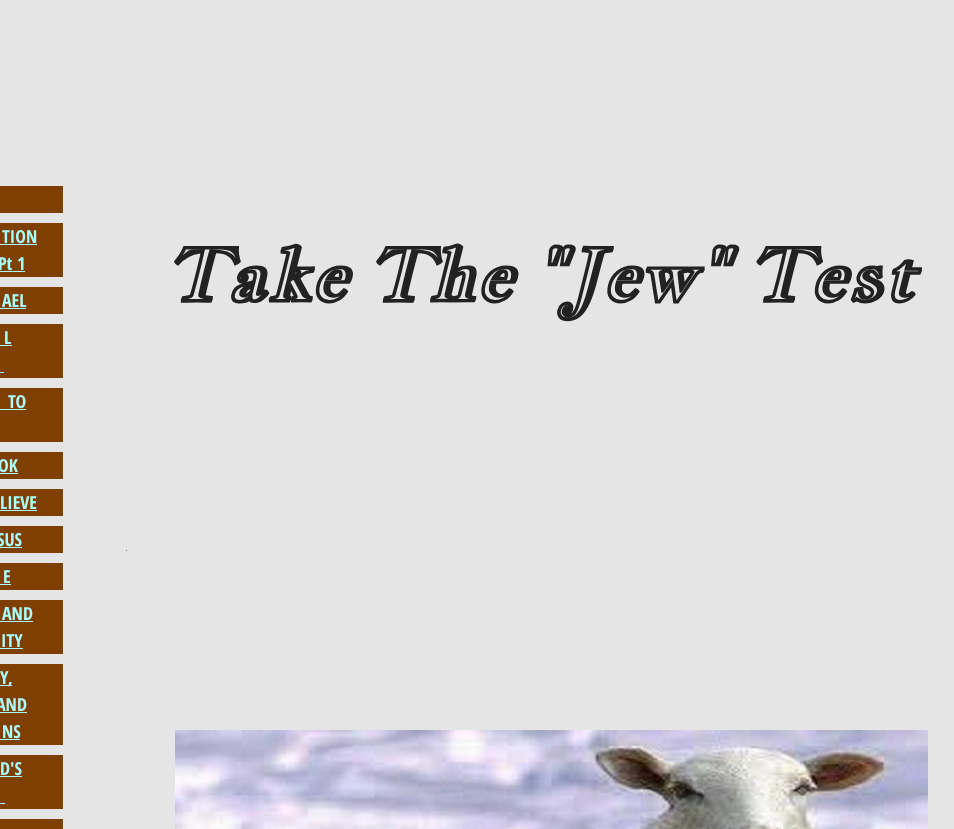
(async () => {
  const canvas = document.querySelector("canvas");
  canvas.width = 954;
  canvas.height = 829;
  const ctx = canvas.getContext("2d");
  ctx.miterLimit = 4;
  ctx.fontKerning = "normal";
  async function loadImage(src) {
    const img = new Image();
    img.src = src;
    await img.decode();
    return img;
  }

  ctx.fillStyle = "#e5e5e5";
  ctx.fillRect(0, 0, 954, 829);
  for (const [x, y, w, h, color] of [
    [0, 186, 63, 27, "#7f3f00"],
    [0, 223, 63, 54, "#7f3f00"],
    [0, 244, 37, 1, "#aaffff"],
    [0, 271, 25, 1, "#aaffff"],
    [0, 287, 63, 27, "#7f3f00"],
    [0, 308, 26, 1, "#aaffff"],
    [0, 324, 63, 54, "#7f3f00"],
    [0, 345, 12, 1, "#aaffff"],
    [0, 372, 4, 1, "#aaffff"],
    [0, 388, 63, 54, "#7f3f00"],
    [0, 409, 26, 1, "#aaffff"],
    [0, 452, 63, 27, "#7f3f00"],
    [0, 473, 18, 1, "#aaffff"],
    [0, 489, 63, 27, "#7f3f00"],
    [0, 510, 37, 1, "#aaffff"],
    [0, 526, 63, 27, "#7f3f00"],
    [0, 547, 22, 1, "#aaffff"],
    [0, 563, 63, 27, "#7f3f00"],
    [0, 584, 11, 1, "#aaffff"],
    [0, 600, 63, 54, "#7f3f00"],
    [0, 621, 33, 1, "#aaffff"],
    [0, 648, 23, 1, "#aaffff"],
    [0, 664, 63, 81, "#7f3f00"],
    [0, 685, 12, 1, "#aaffff"],
    [0, 712, 27, 1, "#aaffff"],
    [0, 739, 20, 1, "#aaffff"],
    [0, 755, 63, 54, "#7f3f00"],
    [0, 776, 22, 1, "#aaffff"],
    [0, 803, 5, 1, "#aaffff"],
    [0, 819, 63, 10, "#7f3f00"],
    [126, 550, 1, 1, "#a38154"],
  ]) {
    ctx.fillStyle = color;
    ctx.fillRect(x, y, w, h);
  }
  ctx.drawImage(await loadImage("img/1.png"), 175, 730, 753, 99);
  ctx.font = "bold 18px Open Sans Condensed";
  ctx.fillStyle = "#aaffff";
  for (const [text, x, y] of [
    ["TION", 2, 243],
    ["Pt 1", -2, 270],
    ["AEL", 2, 307],
    ["L", 4, 344],
    ["TO", 8, 408],
    ["OK", -2, 472],
    ["LIEVE", 0, 509],
    ["SUS", -3, 546],
    ["E", 3, 583],
    ["AND", 2, 620],
    ["ITY", 1, 647],
    ["Y,", 0, 684],
    ["AND", -4, 711],
    ["NS", 2, 738],
    ["D'S", 0, 775],
  ]) {
    ctx.fillText(text, x, y);
  }
  ctx.font = "italic bold 72px Jacques Francois Shadow";
  ctx.fillStyle = "#222222";
  ctx.fillText("Take The \"Jew\" Test", 165, 301);
})();
